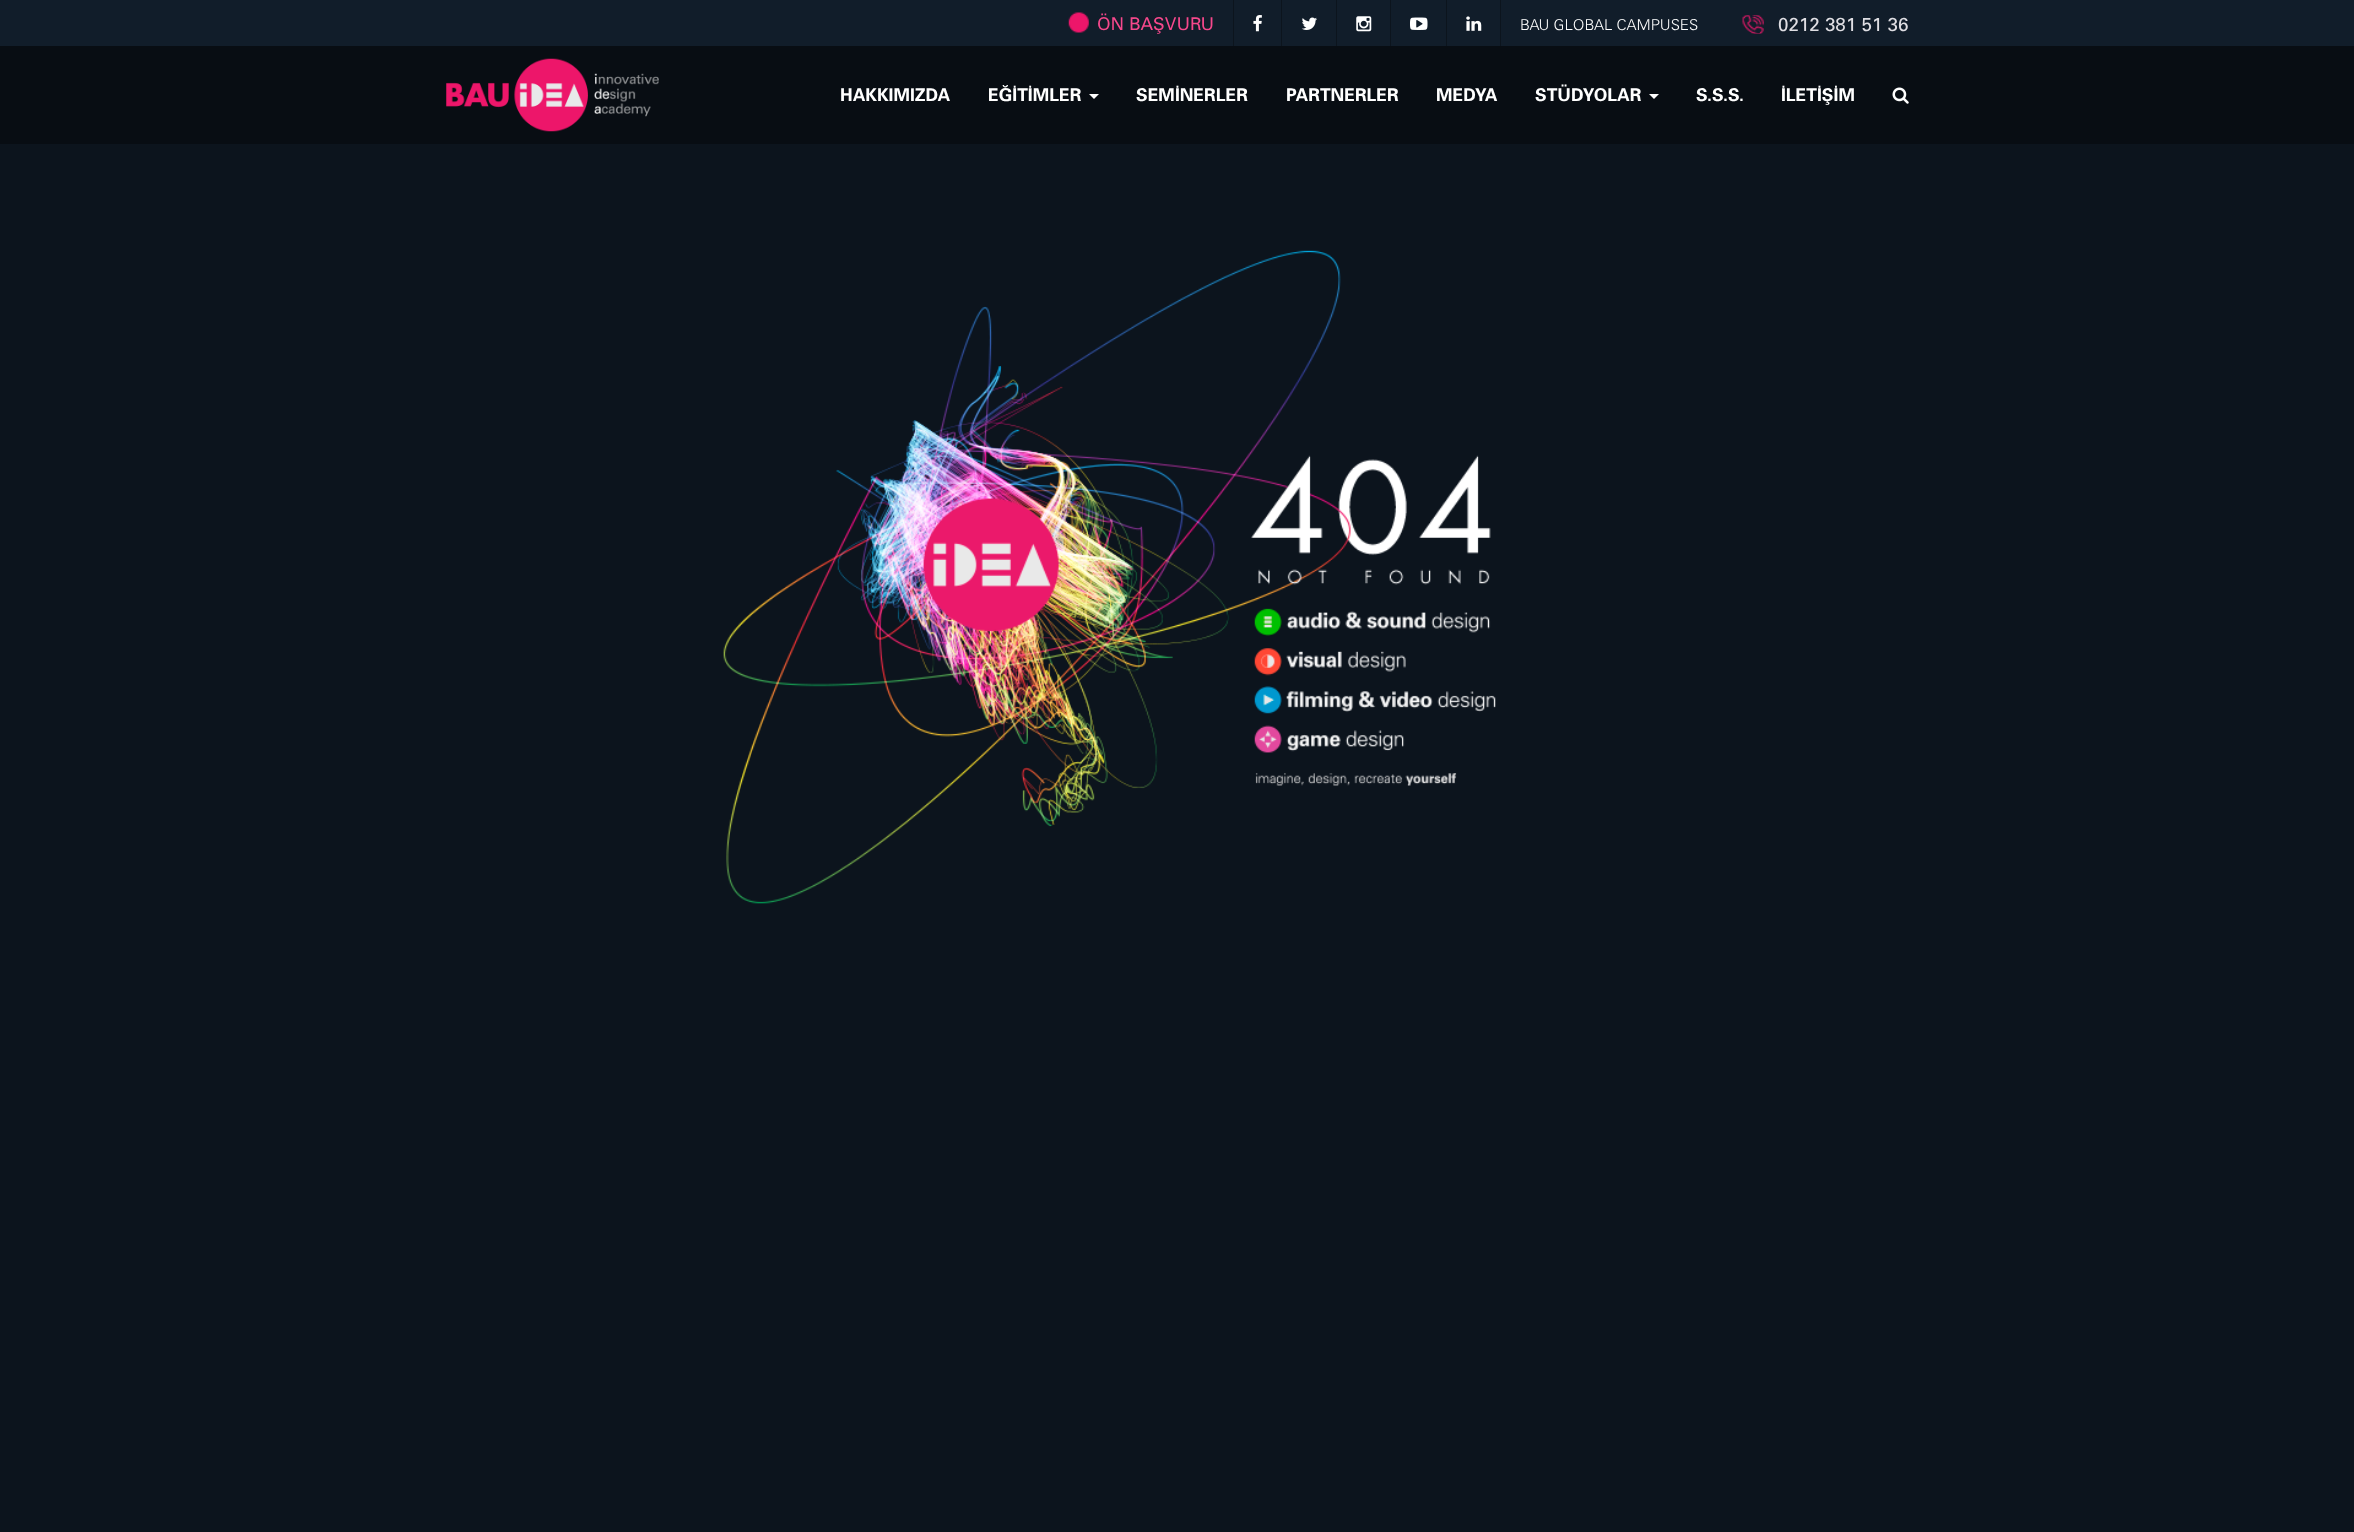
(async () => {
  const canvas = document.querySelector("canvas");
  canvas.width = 2354;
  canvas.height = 1532;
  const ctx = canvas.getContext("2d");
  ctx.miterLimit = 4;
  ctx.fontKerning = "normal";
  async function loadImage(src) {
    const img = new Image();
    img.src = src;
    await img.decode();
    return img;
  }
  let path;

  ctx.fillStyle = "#0c141d";
  ctx.fillRect(0, 0, 2354, 1532);
  ctx.fillStyle = "#111d2a";
  ctx.fillRect(0, 0, 2354, 46);
  ctx.fillStyle = "#0c141d";
  ctx.fillRect(1233, 0, 1, 46);
  ctx.drawImage(await loadImage("img/1.png"), 1068, 12, 21, 21);
  ctx.fillRect(1281, 0, 1, 46);
  ctx.drawImage(await loadImage("img/2.png"), 1253, 15, 9, 17);
  ctx.fillRect(1336, 0, 1, 46);
  ctx.drawImage(await loadImage("img/3.png"), 1301, 17, 16, 13);
  ctx.fillRect(1390, 0, 1, 46);
  ctx.drawImage(await loadImage("img/4.png"), 1356, 16, 16, 16);
  ctx.fillRect(1446, 0, 1, 46);
  ctx.drawImage(await loadImage("img/5.png"), 1410, 17, 18, 13);
  ctx.fillRect(1500, 0, 1, 46);
  ctx.drawImage(await loadImage("img/6.png"), 1466, 16, 16, 15);
  ctx.drawImage(await loadImage("img/7.png"), 1742, 15, 22, 19);
  ctx.fillStyle = "#080d13";
  ctx.fillRect(0, 46, 2354, 98);
  ctx.drawImage(await loadImage("img/8.png"), 446, 58, 213, 74);
  ctx.fillStyle = "#ffffff";
  path = new Path2D("M1089 94H1099L1094 99Z");
  ctx.fill(path);
  path = new Path2D("M1649 94H1659L1654 99Z");
  ctx.fill(path);
  ctx.drawImage(await loadImage("img/9.png"), 1892, 87, 17, 17);
  ctx.drawImage(await loadImage("img/10.png"), 723, 250, 773, 654);
  ctx.font = "500 17.5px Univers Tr";
  ctx.fillStyle = "#f6488c";
  ctx.fillText("ÖN BAŞVURU", 1097, 30);
  ctx.font = "300 15px Univers Tr";
  ctx.fillStyle = "#ffffff";
  ctx.fillText("BAU GLOBAL CAMPUSES", 1520, 30);
  ctx.font = "500 18.75px Univers Tr";
  ctx.fillStyle = "#dfdee3";
  ctx.fillText("0212 381 51 36", 1778, 31);
  ctx.font = "bold 17.5px Univers Tr";
  ctx.fillStyle = "#ffffff";
  for (const [text, x, y] of [
    ["HAKKIMIZDA", 840, 101],
    ["EĞİTİMLER", 988, 101],
    ["SEMİNERLER", 1136, 101],
    ["PARTNERLER", 1286, 101],
    ["MEDYA", 1436, 101],
    ["STÜDYOLAR", 1535, 101],
    ["S.S.S.", 1696, 101],
    ["İLETİŞİM", 1781, 101],
  ]) {
    ctx.fillText(text, x, y);
  }
})();
